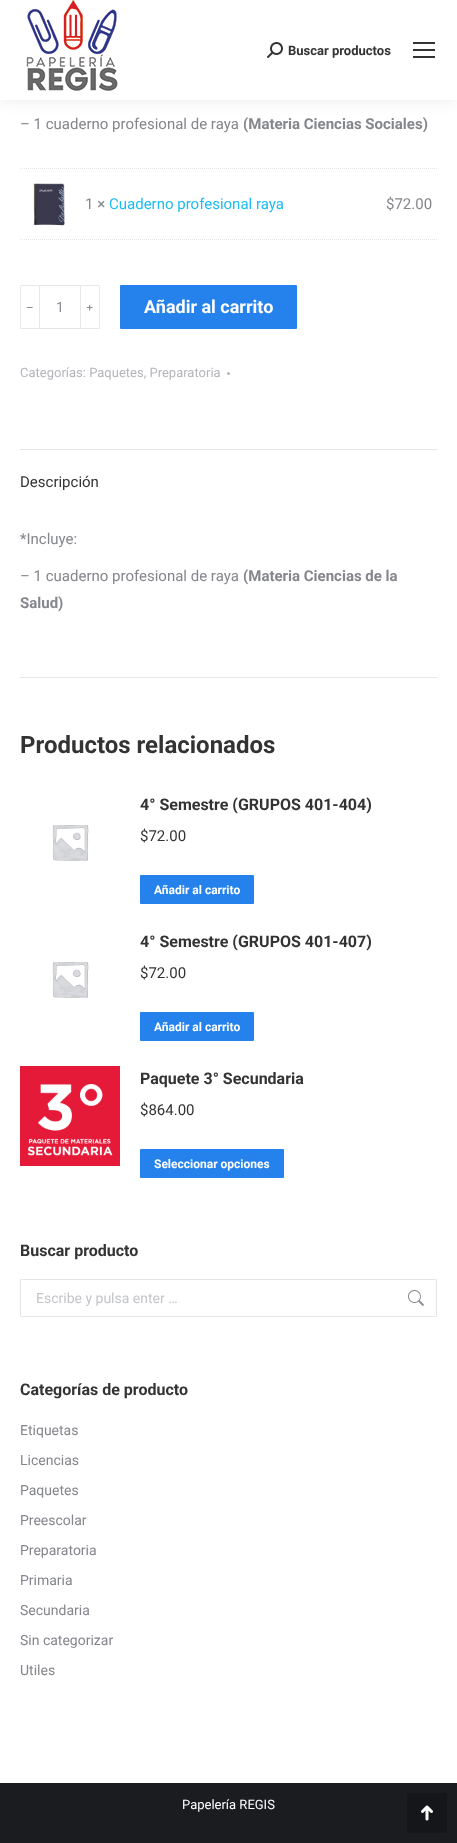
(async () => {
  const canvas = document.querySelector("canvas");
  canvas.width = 457;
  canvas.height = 1843;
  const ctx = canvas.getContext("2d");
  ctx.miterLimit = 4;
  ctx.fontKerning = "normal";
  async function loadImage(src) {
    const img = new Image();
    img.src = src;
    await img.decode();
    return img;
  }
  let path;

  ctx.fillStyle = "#ffffff";
  ctx.fillRect(0, 0, 457, 1843);
  ctx.fillStyle = "rgba(0, 0, 0, 0.07)";
  ctx.filter = "blur(7.5px)";
  ctx.beginPath();
  ctx.rect(-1, -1, 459, 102);
  ctx.fill();
  ctx.filter = "none";
  ctx.fillStyle = "#ffffff";
  ctx.fillRect(0, 0, 457, 100);
  ctx.drawImage(await loadImage("img/1.png"), 26, 0, 92, 91);
  ctx.drawImage(await loadImage("img/2.png"), 267, 42, 16, 16);
  for (const [x, y, w, h, color] of [
    [413, 42, 22, 2, "#333333"],
    [413, 49, 22, 2, "#333333"],
    [413, 56, 22, 2, "#333333"],
  ]) {
    ctx.fillStyle = color;
    ctx.fillRect(x, y, w, h);
  }
  path = new Path2D("M20 168.5H437");
  ctx.strokeStyle = "#e5e5e5";
  ctx.setLineDash([1, 1]);
  ctx.stroke(path);
  path = new Path2D("M20 239.5H437");
  ctx.stroke(path);
  ctx.drawImage(await loadImage("img/3.png"), 33, 183, 32, 43);
  ctx.beginPath();
  ctx.roundRect(20.5, 285.5, 19, 43, [0.5, 0, 0, 0.5]);
  ctx.strokeStyle = "#e7e7e7";
  ctx.setLineDash([]);
  ctx.stroke();
  ctx.fillStyle = "#e5e5e5";
  ctx.fillRect(40, 285, 40, 1);
  ctx.fillRect(40, 328, 40, 1);
  ctx.beginPath();
  ctx.roundRect(80.5, 285.5, 19, 43, [0, 0.5, 0.5, 0]);
  ctx.stroke();
  ctx.fillStyle = "#2582ed";
  ctx.beginPath();
  ctx.roundRect(120, 285, 177, 44, 1);
  ctx.fill();
  ctx.fillStyle = "#b4b5bb";
  ctx.beginPath();
  ctx.arc(228.5, 373.5, 1.5, 0, Math.PI * 2);
  ctx.fill();
  ctx.fillStyle = "#e7e7e7";
  ctx.fillRect(20, 449, 417, 1);
  ctx.fillRect(20, 677, 417, 1);
  ctx.drawImage(await loadImage("img/4.png"), 52, 825, 37, 36);
  ctx.fillStyle = "#2582ed";
  ctx.beginPath();
  ctx.roundRect(140, 875, 114, 29, 1);
  ctx.fill();
  ctx.drawImage(await loadImage("img/4.png"), 52, 962, 37, 36);
  ctx.beginPath();
  ctx.roundRect(140, 1012, 114, 29, 1);
  ctx.fill();
  ctx.drawImage(await loadImage("img/5.png"), 20, 1066, 100, 100);
  ctx.beginPath();
  ctx.roundRect(140, 1149, 144, 29, 1);
  ctx.fill();
  ctx.beginPath();
  ctx.roundRect(20.5, 1279.5, 416, 37, 0.5);
  ctx.strokeStyle = "#e5e5e5";
  ctx.stroke();
  ctx.drawImage(await loadImage("img/6.png"), 408, 1290, 16, 16);
  ctx.fillStyle = "#1a1c20";
  ctx.fillRect(0, 1783, 457, 60);
  ctx.fillStyle = "#15161a";
  ctx.beginPath();
  ctx.roundRect(407, 1793, 40, 40, 1);
  ctx.fill();
  ctx.drawImage(await loadImage("img/7.png"), 421, 1805, 12, 16);
  ctx.font = "bold 13px Roboto";
  ctx.fillStyle = "#333333";
  ctx.fillText("Buscar productos", 288, 55);
  ctx.font = "15px Roboto";
  ctx.fillStyle = "#85868c";
  ctx.fillText("– 1 cuaderno profesional de raya", 20, 129);
  ctx.font = "bold 15px Roboto";
  ctx.fillText("(Materia Ciencias Sociales)", 243, 129);
  ctx.font = "15px Roboto";
  ctx.fillText("1 ×", 85, 209);
  ctx.fillStyle = "#1ebbf0";
  ctx.fillText("Cuaderno profesional raya", 109, 209);
  ctx.fillStyle = "#85868c";
  ctx.fillText("$72.00", 386, 209);
  ctx.font = "bold 14px WenQuanYi Zen Hei";
  ctx.fillStyle = "#8b8d94";
  ctx.fillText("﹣", 23, 312);
  ctx.font = "14px Roboto";
  ctx.fillText("1", 56, 312);
  ctx.font = "bold 14px WenQuanYi Zen Hei";
  ctx.fillText("﹢", 83, 312);
  ctx.font = "bold 18px Roboto";
  ctx.fillStyle = "#ffffff";
  ctx.fillText("Añadir al carrito", 144, 313);
  ctx.font = "13px Roboto";
  ctx.fillStyle = "#b4b5bb";
  ctx.fillText("Categorías: Paquetes, Preparatoria", 20, 377);
  ctx.font = "15px Roboto";
  ctx.fillStyle = "#333333";
  ctx.fillText("Descripción", 20, 487);
  ctx.fillStyle = "#85868c";
  ctx.fillText("*Incluye:", 20, 544);
  ctx.fillText("– 1 cuaderno profesional de raya", 20, 581);
  ctx.font = "bold 15px Roboto";
  ctx.fillText("(Materia Ciencias de la", 243, 581);
  ctx.fillText("Salud)", 20, 608);
  ctx.font = "bold 24px Roboto";
  ctx.fillStyle = "#333333";
  ctx.fillText("Productos relacionados", 20, 753);
  ctx.font = "bold 16px Roboto";
  ctx.fillText("4° Semestre (GRUPOS 401-404)", 140, 810);
  ctx.font = "15px Roboto";
  ctx.fillText("$72.00", 140, 841);
  ctx.font = "bold 12px Roboto";
  ctx.fillStyle = "#ffffff";
  ctx.fillText("Añadir al carrito", 154, 894);
  ctx.font = "bold 16px Roboto";
  ctx.fillStyle = "#333333";
  ctx.fillText("4° Semestre (GRUPOS 401-407)", 140, 947);
  ctx.font = "15px Roboto";
  ctx.fillText("$72.00", 140, 978);
  ctx.font = "bold 12px Roboto";
  ctx.fillStyle = "#ffffff";
  ctx.fillText("Añadir al carrito", 154, 1031);
  ctx.font = "bold 16px Roboto";
  ctx.fillStyle = "#333333";
  ctx.fillText("Paquete 3° Secundaria", 140, 1084);
  ctx.font = "15px Roboto";
  ctx.fillText("$864.00", 140, 1115);
  ctx.font = "bold 12px Roboto";
  ctx.fillStyle = "#ffffff";
  ctx.fillText("Seleccionar opciones", 154, 1168);
  ctx.font = "bold 16px Roboto";
  ctx.fillStyle = "#333333";
  ctx.fillText("Buscar producto", 20, 1256);
  ctx.font = "14px Roboto";
  ctx.fillStyle = "#c4c5c9";
  ctx.fillText("Escribe y pulsa enter …", 36, 1303);
  ctx.font = "bold 16px Roboto";
  ctx.fillStyle = "#333333";
  ctx.fillText("Categorías de producto", 20, 1395);
  ctx.font = "14px Roboto";
  ctx.fillStyle = "#85868c";
  for (const [text, x, y] of [
    ["Etiquetas", 20, 1435],
    ["Licencias", 20, 1465],
    ["Paquetes", 20, 1495],
    ["Preescolar", 20, 1525],
    ["Preparatoria", 20, 1555],
    ["Primaria", 20, 1585],
    ["Secundaria", 20, 1615],
    ["Sin categorizar", 20, 1645],
    ["Utiles", 20, 1675],
  ]) {
    ctx.fillText(text, x, y);
  }
  ctx.font = "13px Roboto";
  ctx.fillStyle = "#ffffff";
  ctx.fillText("Papelería REGIS", 182, 1809);
})();
